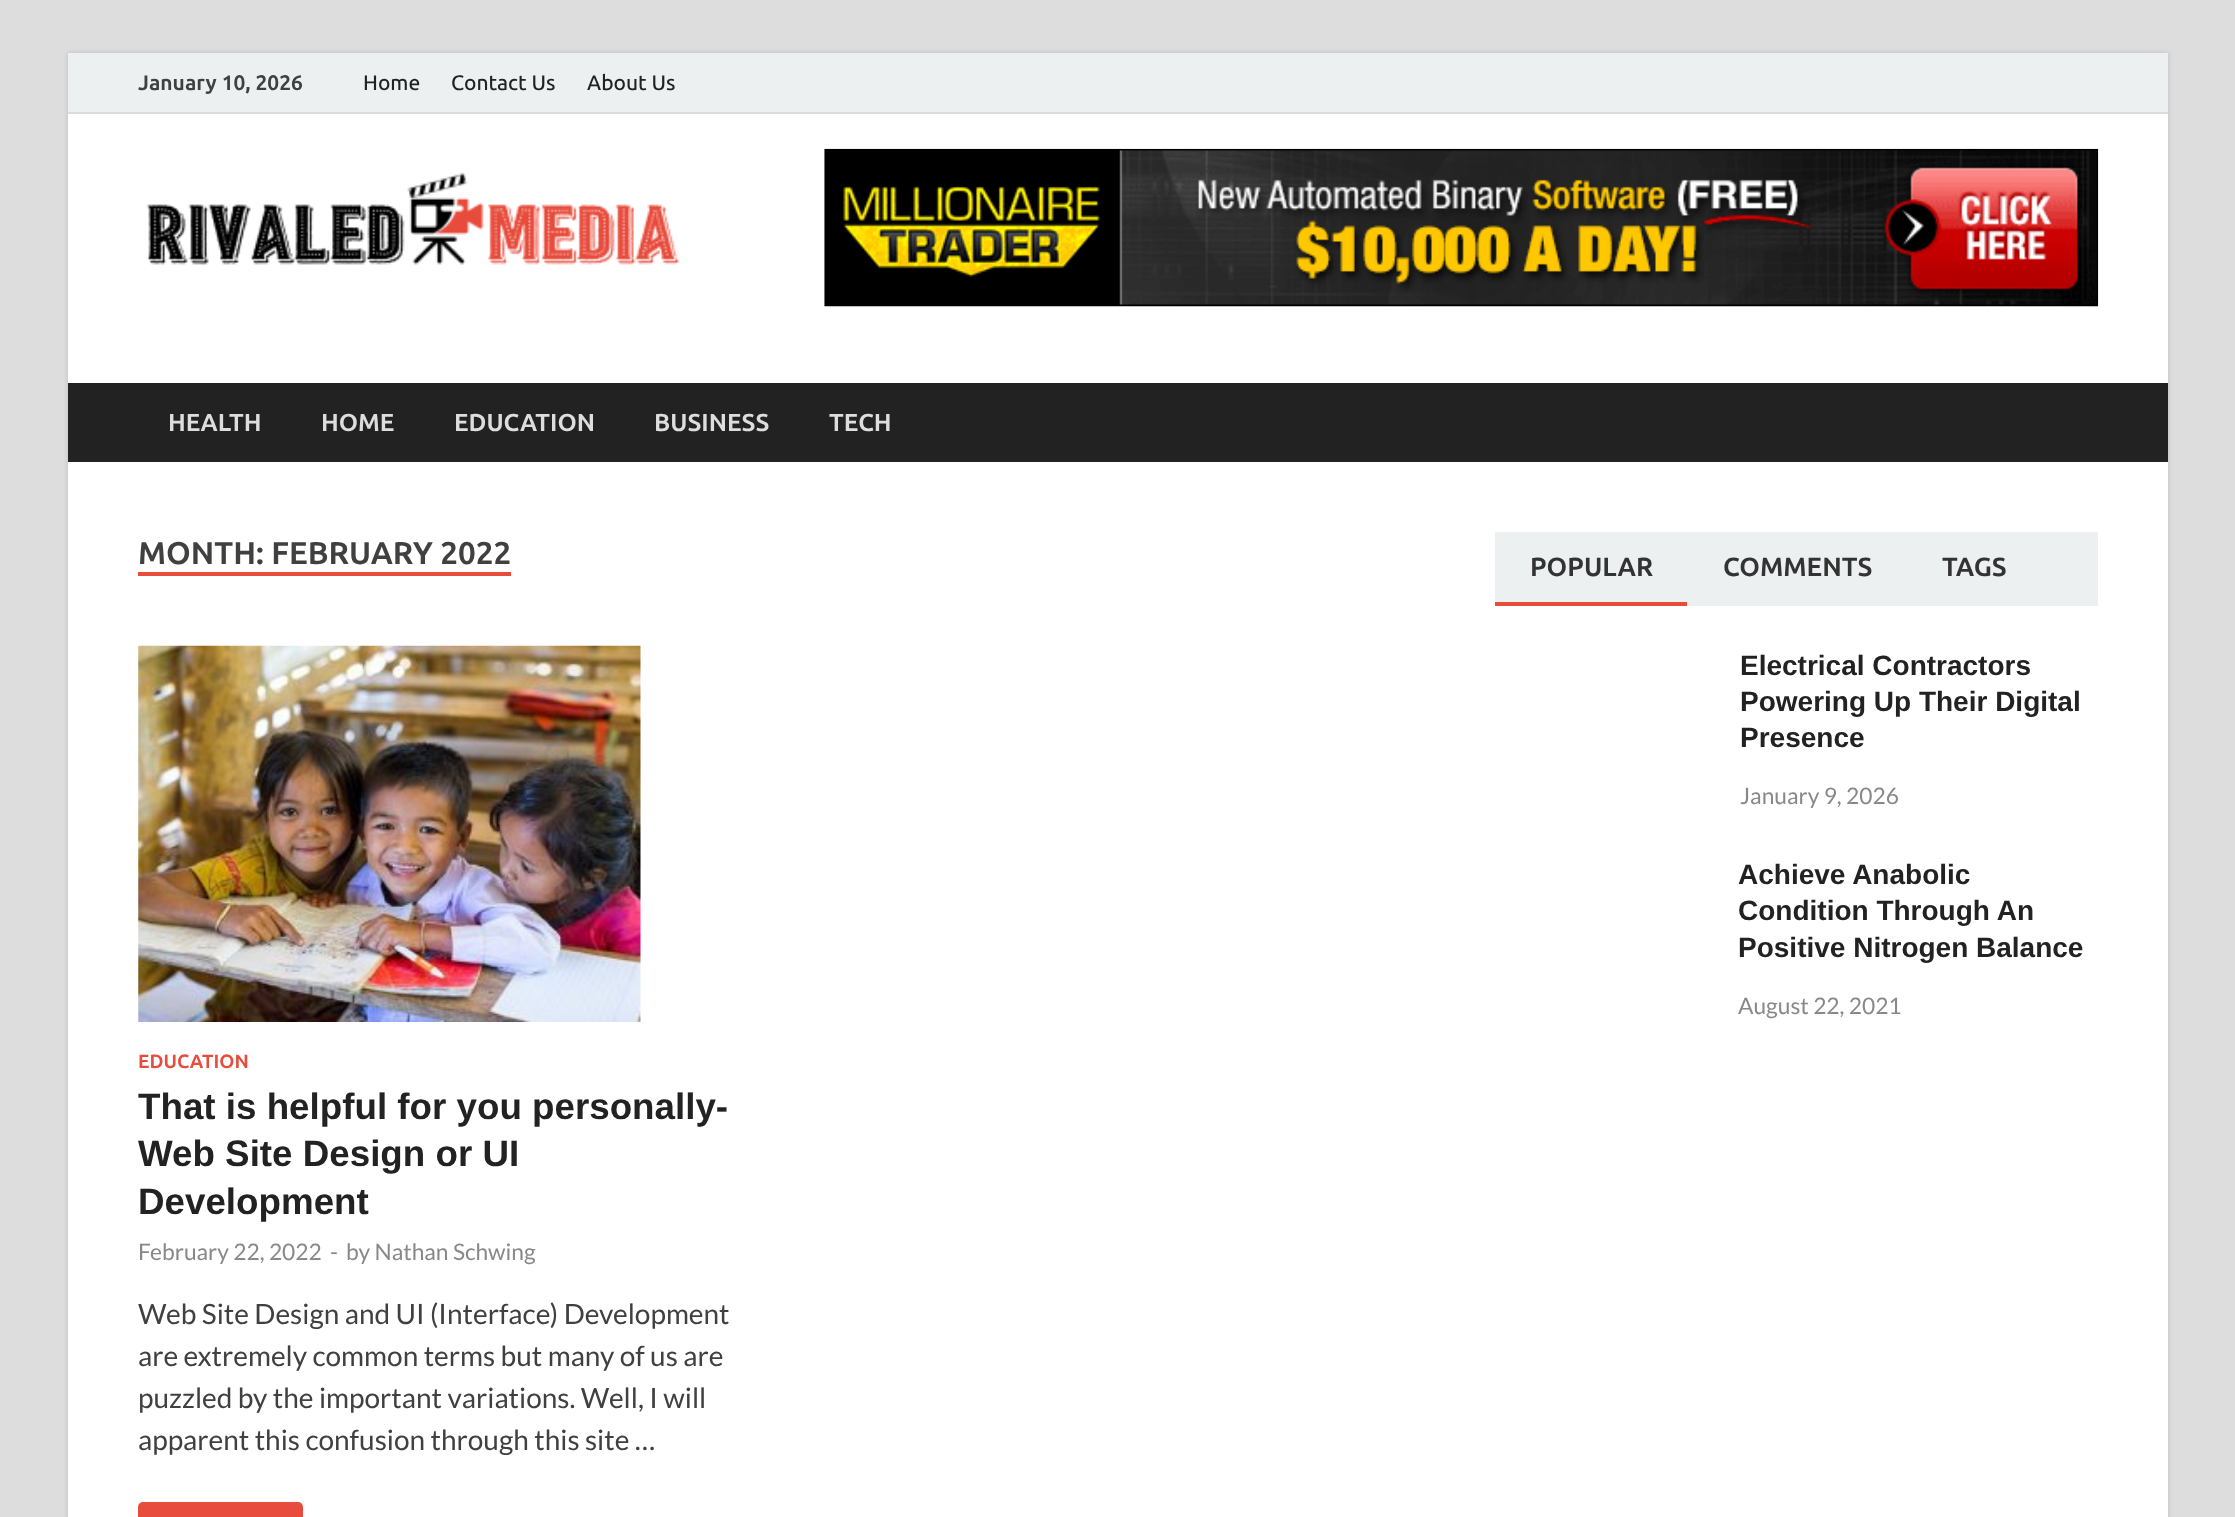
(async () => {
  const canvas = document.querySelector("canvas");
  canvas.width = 2235;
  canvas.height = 1517;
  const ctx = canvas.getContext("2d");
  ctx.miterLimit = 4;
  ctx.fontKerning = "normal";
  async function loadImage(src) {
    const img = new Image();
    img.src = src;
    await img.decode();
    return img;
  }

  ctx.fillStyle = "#dddddd";
  ctx.fillRect(0, 0, 2235, 1517);
  ctx.fillStyle = "#bbbbbb";
  ctx.filter = "blur(2px)";
  ctx.beginPath();
  ctx.rect(68, 53, 2100, 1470);
  ctx.fill();
  ctx.filter = "none";
  for (const [x, y, w, h, color] of [
    [68, 114, 2100, 1403, "#ffffff"],
    [68, 53, 2100, 59, "#ecf0f1"],
    [68, 112, 2100, 2, "#dddddd"],
  ]) {
    ctx.fillStyle = color;
    ctx.fillRect(x, y, w, h);
  }
  ctx.drawImage(await loadImage("img/1.png"), 146, 172, 534, 93);
  ctx.drawImage(await loadImage("img/2.png"), 824, 148, 1275, 159);
  ctx.fillStyle = "#222222";
  ctx.fillRect(68, 383, 2100, 79);
  ctx.fillStyle = "#e74c3c";
  ctx.fillRect(138, 572, 373, 4);
  ctx.drawImage(await loadImage("img/3.png"), 138, 645, 503, 377);
  ctx.beginPath();
  ctx.roundRect(138, 1502, 165, 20, 5);
  ctx.fill();
  ctx.fillStyle = "#ecf0f1";
  ctx.fillRect(1495, 532, 603, 74);
  ctx.fillStyle = "#e74c3c";
  ctx.fillRect(1495, 602, 192, 4);
  ctx.font = "bold 21px Ubuntu";
  ctx.fillStyle = "#404040";
  ctx.fillText("January 10, 2026", 138, 90);
  ctx.font = "500 21px Ubuntu";
  ctx.fillStyle = "#222222";
  for (const [text, x, y] of [
    ["Home", 363, 90],
    ["Contact Us", 451, 90],
    ["About Us", 587, 90],
  ]) {
    ctx.fillText(text, x, y);
  }
  ctx.font = "bold 24.5px Ubuntu";
  ctx.fillStyle = "#dddddd";
  for (const [text, x, y] of [
    ["HEALTH", 168, 431],
    ["HOME", 321, 431],
    ["EDUCATION", 454, 431],
    ["BUSINESS", 654, 431],
    ["TECH", 829, 431],
  ]) {
    ctx.fillText(text, x, y);
  }
  ctx.font = "bold 31.5px Ubuntu";
  ctx.fillStyle = "#404040";
  ctx.fillText("MONTH: FEBRUARY 2022", 138, 564);
  ctx.font = "bold 19.25px Ubuntu";
  ctx.fillStyle = "#e74c3c";
  ctx.fillText("EDUCATION", 138, 1068);
  ctx.font = "bold 36.75px Liberation Sans";
  ctx.fillStyle = "#222222";
  for (const [text, x, y] of [
    ["That is helpful for you personally-", 138, 1119],
    ["Web Site Design or UI", 138, 1166],
    ["Development", 138, 1214],
  ]) {
    ctx.fillText(text, x, y);
  }
  ctx.font = "22.75px Lato";
  ctx.fillStyle = "#888888";
  for (const [text, x, y] of [
    ["February 22, 2022", 138, 1260],
    ["-", 330, 1260],
    ["by Nathan Schwing", 346, 1260],
  ]) {
    ctx.fillText(text, x, y);
  }
  ctx.font = "28px Lato";
  ctx.fillStyle = "#404040";
  for (const [text, x, y] of [
    ["Web Site Design and UI (Interface) Development", 138, 1324],
    ["are extremely common terms but many of us are", 138, 1366],
    ["puzzled by the important variations. Well, I will", 138, 1408],
    ["apparent this confusion through this site …", 138, 1450],
  ]) {
    ctx.fillText(text, x, y);
  }
  ctx.font = "bold 26.25px Ubuntu";
  ctx.fillStyle = "#333333";
  for (const [text, x, y] of [
    ["POPULAR", 1530, 576],
    ["COMMENTS", 1723, 576],
    ["TAGS", 1942, 576],
  ]) {
    ctx.fillText(text, x, y);
  }
  ctx.font = "bold 28px Liberation Sans";
  ctx.fillStyle = "#222222";
  for (const [text, x, y] of [
    ["Electrical Contractors", 1740, 675],
    ["Powering Up Their Digital", 1740, 711],
    ["Presence", 1740, 747],
  ]) {
    ctx.fillText(text, x, y);
  }
  ctx.font = "22.75px Lato";
  ctx.fillStyle = "#888888";
  ctx.fillText("January 9, 2026", 1740, 804);
  ctx.font = "bold 28px Liberation Sans";
  ctx.fillStyle = "#222222";
  for (const [text, x, y] of [
    ["Achieve Anabolic", 1738, 884],
    ["Condition Through An", 1738, 920],
    ["Positive Nitrogen Balance", 1738, 957],
  ]) {
    ctx.fillText(text, x, y);
  }
  ctx.font = "22.75px Lato";
  ctx.fillStyle = "#888888";
  ctx.fillText("August 22, 2021", 1738, 1014);
})();
